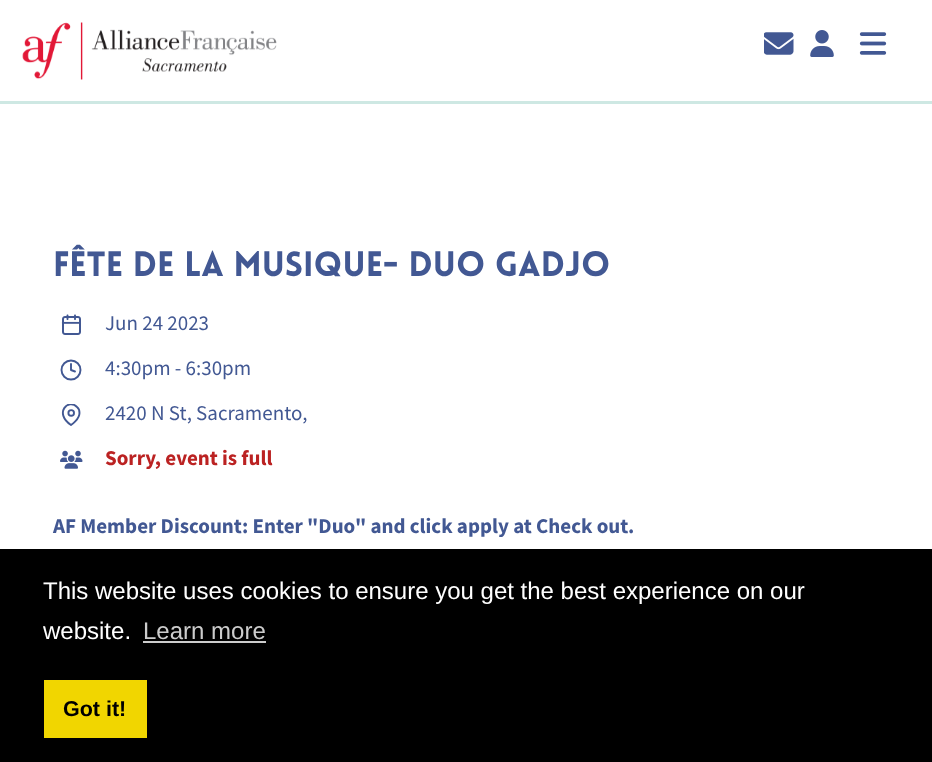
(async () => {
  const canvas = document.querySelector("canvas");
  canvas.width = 932;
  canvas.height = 762;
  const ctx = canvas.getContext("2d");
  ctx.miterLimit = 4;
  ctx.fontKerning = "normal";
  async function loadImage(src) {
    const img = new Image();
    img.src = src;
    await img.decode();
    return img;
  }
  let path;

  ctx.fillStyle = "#ffffff";
  ctx.fillRect(0, 0, 932, 762);
  ctx.fillStyle = "#cee8e3";
  ctx.fillRect(0, 101, 932, 3);
  ctx.drawImage(await loadImage("img/1.png"), 22, 22, 255, 58);
  ctx.drawImage(await loadImage("img/2.png"), 764, 32, 30, 23);
  ctx.drawImage(await loadImage("img/3.png"), 810, 30, 24, 27);
  ctx.drawImage(await loadImage("img/4.png"), 859, 32, 28, 23);
  ctx.drawImage(await loadImage("img/5.png"), 61, 314, 20, 21);
  ctx.beginPath();
  ctx.arc(71, 370, 9.5, 0, Math.PI * 2);
  ctx.strokeStyle = "#425893";
  ctx.lineWidth = 1.9;
  ctx.stroke();
  path = new Path2D("M71 364V370L75 371.5");
  ctx.lineCap = "round";
  ctx.lineJoin = "round";
  ctx.stroke(path);
  ctx.save();
  ctx.beginPath();
  ctx.rect(60, 404, 23, 22);
  ctx.clip();
  path = new Path2D("M79.5 413C79.5 419.5 71 425 71 425C53.5 413 68.5 398 77 407C79 408.5 79.5 410.5 79.5 413Z");
  ctx.stroke(path);
  ctx.restore();
  ctx.beginPath();
  ctx.arc(71.2, 412.9, 2.8, 0, Math.PI * 2);
  ctx.stroke();
  ctx.drawImage(await loadImage("img/6.png"), 60, 450, 23, 19);
  for (const [x, y, w, h, color] of [
    [0, 549, 932, 213, "#000000"],
    [143, 641, 123, 2, "#cccccc"],
    [44, 680, 103, 58, "#f1d600"],
  ]) {
    ctx.fillStyle = color;
    ctx.fillRect(x, y, w, h);
  }
  ctx.font = "900 34.5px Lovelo";
  ctx.fillStyle = "#425893";
  ctx.fillText("FÊTE DE LA MUSIQUE- DUO GADJO", 53, 276);
  ctx.font = "21px Source Sans Pro";
  for (const [text, x, y] of [
    ["Jun 24 2023", 105, 330],
    ["4:30pm - 6:30pm", 105, 375],
    ["2420 N St, Sacramento,", 105, 420],
  ]) {
    ctx.fillText(text, x, y);
  }
  ctx.font = "bold 21px Source Sans Pro";
  ctx.fillStyle = "#bb2222";
  ctx.fillText("Sorry, event is full", 105, 465);
  ctx.fillStyle = "#425893";
  ctx.fillText("AF Member Discount: Enter \"Duo\" and click apply at Check out.", 53, 533);
  ctx.font = "24px Liberation Sans";
  ctx.fillStyle = "#ffffff";
  ctx.fillText("This website uses cookies to ensure you get the best experience on our", 43, 599);
  ctx.fillText("website.", 43, 639);
  ctx.fillStyle = "#cccccc";
  ctx.fillText("Learn more", 143, 639);
  ctx.font = "bold 21.5px Liberation Sans";
  ctx.fillStyle = "#000000";
  ctx.fillText("Got it!", 63, 716);
})();
